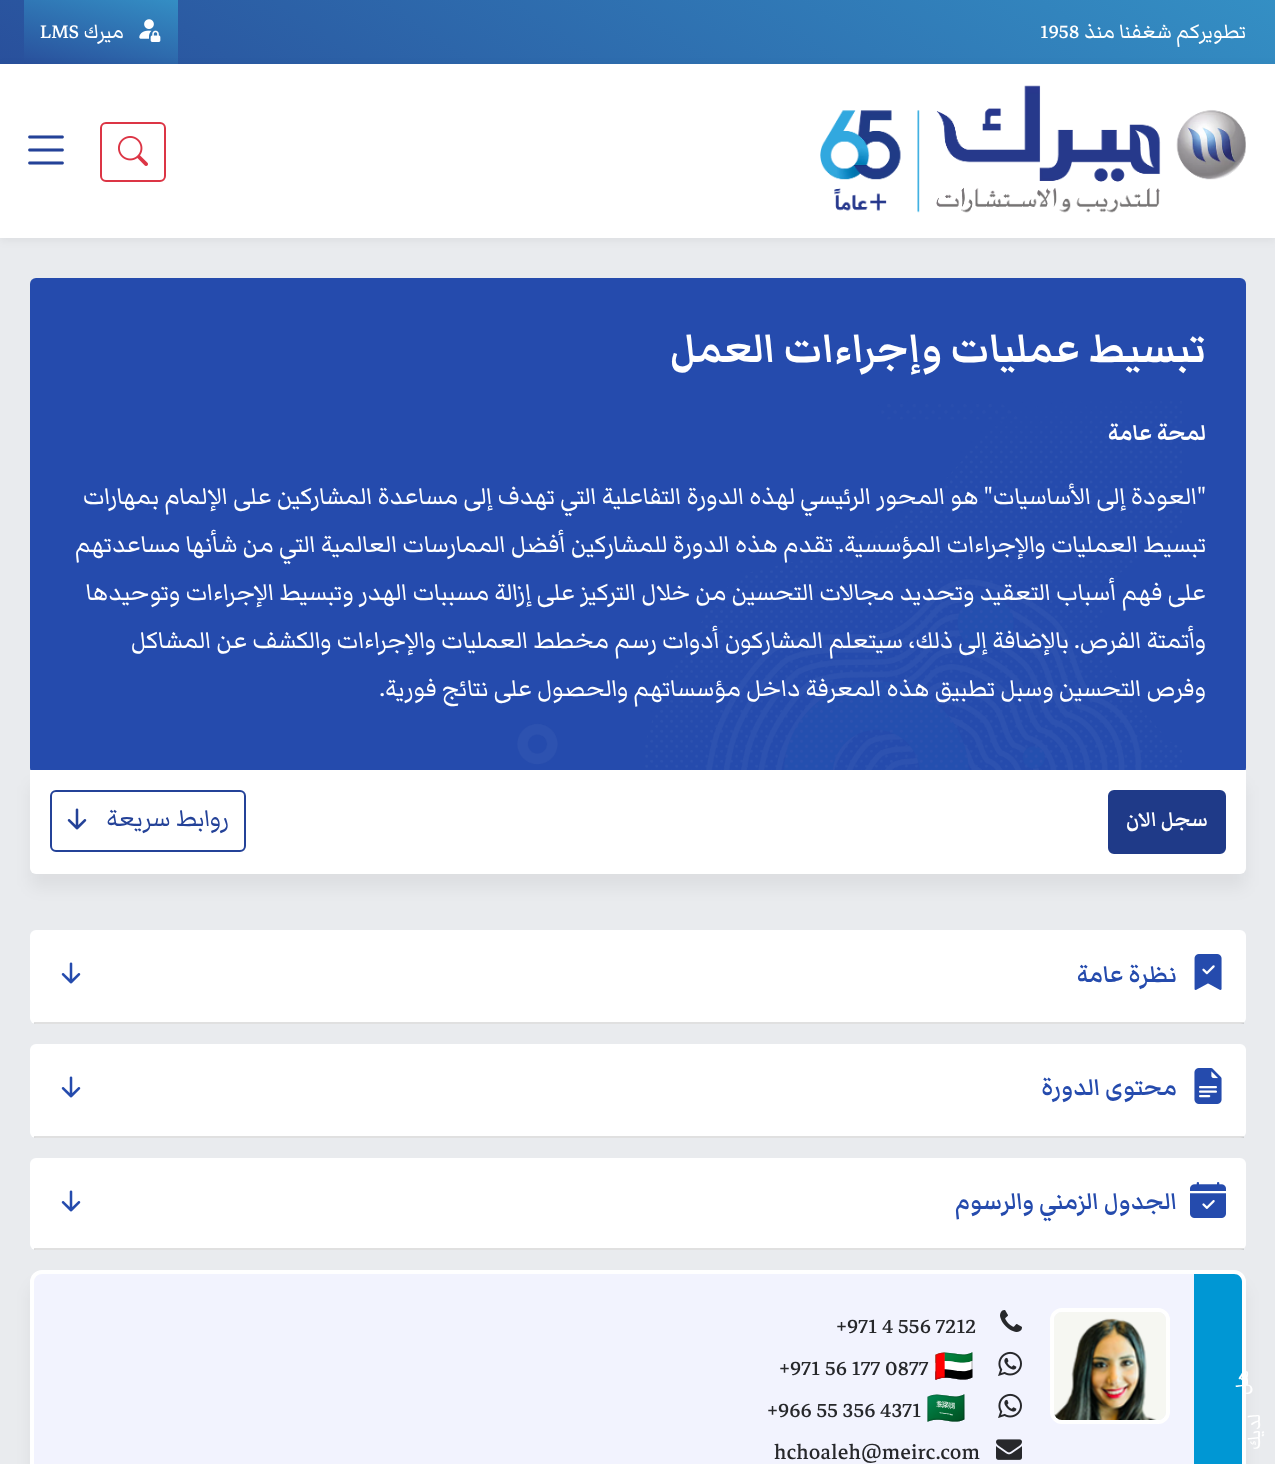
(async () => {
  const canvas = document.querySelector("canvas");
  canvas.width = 1275;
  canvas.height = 1464;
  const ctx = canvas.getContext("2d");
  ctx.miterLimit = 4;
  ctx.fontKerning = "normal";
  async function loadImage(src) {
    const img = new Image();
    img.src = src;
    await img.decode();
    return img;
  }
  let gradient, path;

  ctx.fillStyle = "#e9ebee";
  ctx.fillRect(0, 0, 1275, 1464);
  gradient = ctx.createLinearGradient(424, 350, 852, -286);
  gradient.addColorStop(0, "#29509c");
  gradient.addColorStop(1, "#348fc4");
  ctx.fillStyle = gradient;
  ctx.fillRect(0, 0, 1275, 64);
  gradient = ctx.createLinearGradient(89, 80, 113, -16);
  gradient.addColorStop(0, "#29509c");
  gradient.addColorStop(1, "#348ec4");
  ctx.fillStyle = gradient;
  ctx.fillRect(24, 0, 154, 64);
  ctx.drawImage(await loadImage("img/1.png"), 139, 19, 22, 23);
  ctx.fillStyle = "rgba(0, 0, 0, 0.06)";
  ctx.filter = "blur(5px)";
  ctx.beginPath();
  ctx.rect(0, 66, 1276, 174);
  ctx.fill();
  ctx.filter = "none";
  ctx.fillStyle = "#ffffff";
  ctx.fillRect(0, 64, 1275, 174);
  ctx.drawImage(await loadImage("img/2.png"), 820, 85, 426, 128);
  ctx.beginPath();
  ctx.roundRect(101, 123, 64, 58, 5);
  ctx.strokeStyle = "#dc3545";
  ctx.lineWidth = 2;
  ctx.stroke();
  ctx.drawImage(await loadImage("img/3.png"), 118, 136, 30, 30);
  ctx.drawImage(await loadImage("img/4.png"), 28, 135, 36, 30);
  ctx.fillStyle = "#254bad";
  ctx.beginPath();
  ctx.roundRect(30, 278, 1216, 496, 6);
  ctx.fill();
  ctx.drawImage(await loadImage("img/5.png"), 517, 401, 665, 369);
  ctx.fillStyle = "rgba(0, 0, 0, 0.05)";
  ctx.filter = "blur(8px)";
  ctx.beginPath();
  ctx.roundRect(30, 784, 1216, 104, 6);
  ctx.fill();
  ctx.filter = "none";
  ctx.fillStyle = "#ffffff";
  ctx.beginPath();
  ctx.roundRect(30, 770, 1216, 104, [0, 0, 6, 6]);
  ctx.fill();
  ctx.fillStyle = "#1f3a88";
  ctx.beginPath();
  ctx.roundRect(1109, 791, 116, 62, 5);
  ctx.fill();
  ctx.strokeStyle = "#1f3a88";
  ctx.stroke();
  ctx.beginPath();
  ctx.roundRect(51, 791, 194, 60, 5);
  ctx.strokeStyle = "#244298";
  ctx.stroke();
  ctx.drawImage(await loadImage("img/6.png"), 67, 808, 20, 22);
  ctx.fillStyle = "#ffffff";
  ctx.beginPath();
  ctx.roundRect(30, 930, 1216, 94, 6);
  ctx.fill();
  ctx.fillStyle = "rgba(0, 0, 0, 0.12)";
  ctx.fillRect(34, 1022, 1210, 2);
  ctx.drawImage(await loadImage("img/7.png"), 1194, 954, 28, 36);
  ctx.drawImage(await loadImage("img/8.png"), 61, 962, 20, 22);
  ctx.fillStyle = "#ffffff";
  ctx.beginPath();
  ctx.roundRect(30, 1044, 1216, 94, 6);
  ctx.fill();
  ctx.fillStyle = "rgba(0, 0, 0, 0.12)";
  ctx.fillRect(34, 1136, 1210, 2);
  ctx.drawImage(await loadImage("img/9.png"), 1194, 1068, 28, 36);
  ctx.drawImage(await loadImage("img/8.png"), 61, 1076, 20, 22);
  ctx.fillStyle = "#ffffff";
  ctx.beginPath();
  ctx.roundRect(30, 1158, 1216, 92, 6);
  ctx.fill();
  ctx.fillStyle = "rgba(0, 0, 0, 0.12)";
  ctx.fillRect(34, 1248, 1210, 2);
  ctx.drawImage(await loadImage("img/10.png"), 1190, 1182, 36, 36);
  ctx.drawImage(await loadImage("img/8.png"), 61, 1190, 20, 22);
  ctx.fillStyle = "rgba(0, 0, 0, 0.05)";
  ctx.filter = "blur(8px)";
  ctx.beginPath();
  ctx.roundRect(30, 1284, 1216, 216, 12);
  ctx.fill();
  ctx.filter = "none";
  ctx.fillStyle = "#f2f3fe";
  ctx.beginPath();
  ctx.roundRect(32, 1272, 1212, 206, 10);
  ctx.fill();
  ctx.strokeStyle = "#ffffff";
  ctx.lineWidth = 4;
  ctx.stroke();
  ctx.fillStyle = "#0097d4";
  path = new Path2D("M1194 1274H1234C1238.5 1274 1242 1277.5 1242 1282V1464C1242 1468.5 1238.5 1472 1234 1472H1194Z");
  ctx.fill(path);
  ctx.beginPath();
  ctx.roundRect(1052, 1310, 116, 112, 10);
  ctx.stroke();
  ctx.drawImage(await loadImage("img/11.png"), 1054, 1312, 112, 108);
  ctx.drawImage(await loadImage("img/12.png"), 1000, 1310, 22, 22);
  ctx.drawImage(await loadImage("img/13.png"), 998, 1351, 24, 25);
  ctx.drawImage(await loadImage("img/13.png"), 998, 1393, 24, 25);
  ctx.drawImage(await loadImage("img/14.png"), 996, 1439, 26, 21);
  ctx.direction = "rtl";
  ctx.font = "26px Markazi Text";
  ctx.fillStyle = "#ffffff";
  ctx.fillText("تطويركم شغفنا منذ", 1246, 38);
  ctx.direction = "ltr";
  ctx.fillText("1958", 1040, 38);
  ctx.direction = "rtl";
  ctx.fillText("ميرك", 124, 38);
  ctx.direction = "ltr";
  ctx.fillText("LMS", 40, 38);
  ctx.direction = "rtl";
  ctx.font = "bold 52px Markazi Text";
  ctx.fillText("تبسيط عمليات وإجراءات العمل", 1206, 362);
  ctx.font = "bold 28px Markazi Text";
  ctx.fillText("لمحة عامة", 1206, 440);
  ctx.font = "30.8px Markazi Text";
  for (const [text, x, y] of [
    ["\"العودة إلى الأساسيات\" هو المحور الرئيسي لهذه الدورة التفاعلية التي تهدف إلى مساعدة المشاركين على الإلمام بمهارات", 1206, 504],
    ["تبسيط العمليات والإجراءات المؤسسية. تقدم هذه الدورة للمشاركين أفضل الممارسات العالمية التي من شأنها مساعدتهم", 1206, 552],
    ["على فهم أسباب التعقيد وتحديد مجالات التحسين من خلال التركيز على إزالة مسببات الهدر وتبسيط الإجراءات وتوحيدها", 1206, 600],
    ["وأتمتة الفرص. بالإضافة إلى ذلك، سيتعلم المشاركون أدوات رسم مخطط العمليات والإجراءات والكشف عن المشاكل", 1206, 648],
    ["وفرص التحسين وسبل تطبيق هذه المعرفة داخل مؤسساتهم والحصول على نتائج فورية.", 1206, 696],
  ]) {
    ctx.fillText(text, x, y);
  }
  ctx.font = "600 26px Markazi Text";
  ctx.fillText("سجل الان", 1208, 826);
  ctx.font = "30.8px Markazi Text";
  ctx.fillStyle = "#244298";
  ctx.fillText("روابط سريعة", 229, 826);
  ctx.font = "600 30px Markazi Text";
  ctx.fillStyle = "#254bad";
  for (const [text, x, y] of [
    ["نظرة عامة", 1177, 982],
    ["محتوى الدورة", 1177, 1095],
    ["الجدول الزمني والرسوم", 1177, 1209],
  ]) {
    ctx.fillText(text, x, y);
  }
  ctx.letterSpacing = "0.5px";
  ctx.font = "24px Markazi Text";
  ctx.fillStyle = "#ffffff";
  ctx.save();
  ctx.translate(1248, 1370);
  ctx.rotate(-90 * Math.PI / 180);
  ctx.fillText("هل", 0, 0);
  ctx.restore();
  ctx.save();
  ctx.translate(1260, 1414);
  ctx.rotate(-90 * Math.PI / 180);
  ctx.fillText("لديك", 0, 0);
  ctx.restore();
  ctx.letterSpacing = "0px";
  ctx.direction = "ltr";
  ctx.font = "28px Markazi Text";
  ctx.fillStyle = "#27282b";
  ctx.fillText("+971 4 556 7212", 836, 1333);
  ctx.font = "32px Noto Color Emoji";
  ctx.fillText("🇦🇪", 934, 1377);
  ctx.font = "28px Markazi Text";
  ctx.fillText("+971 56 177 0877", 779, 1375);
  ctx.font = "32px Noto Color Emoji";
  ctx.fillText("🇸🇦", 926, 1419);
  ctx.font = "28px Markazi Text";
  ctx.fillText("+966 55 356 4371", 767, 1417);
  ctx.fillText("hchoaleh@meirc.com", 774, 1459);
})();
